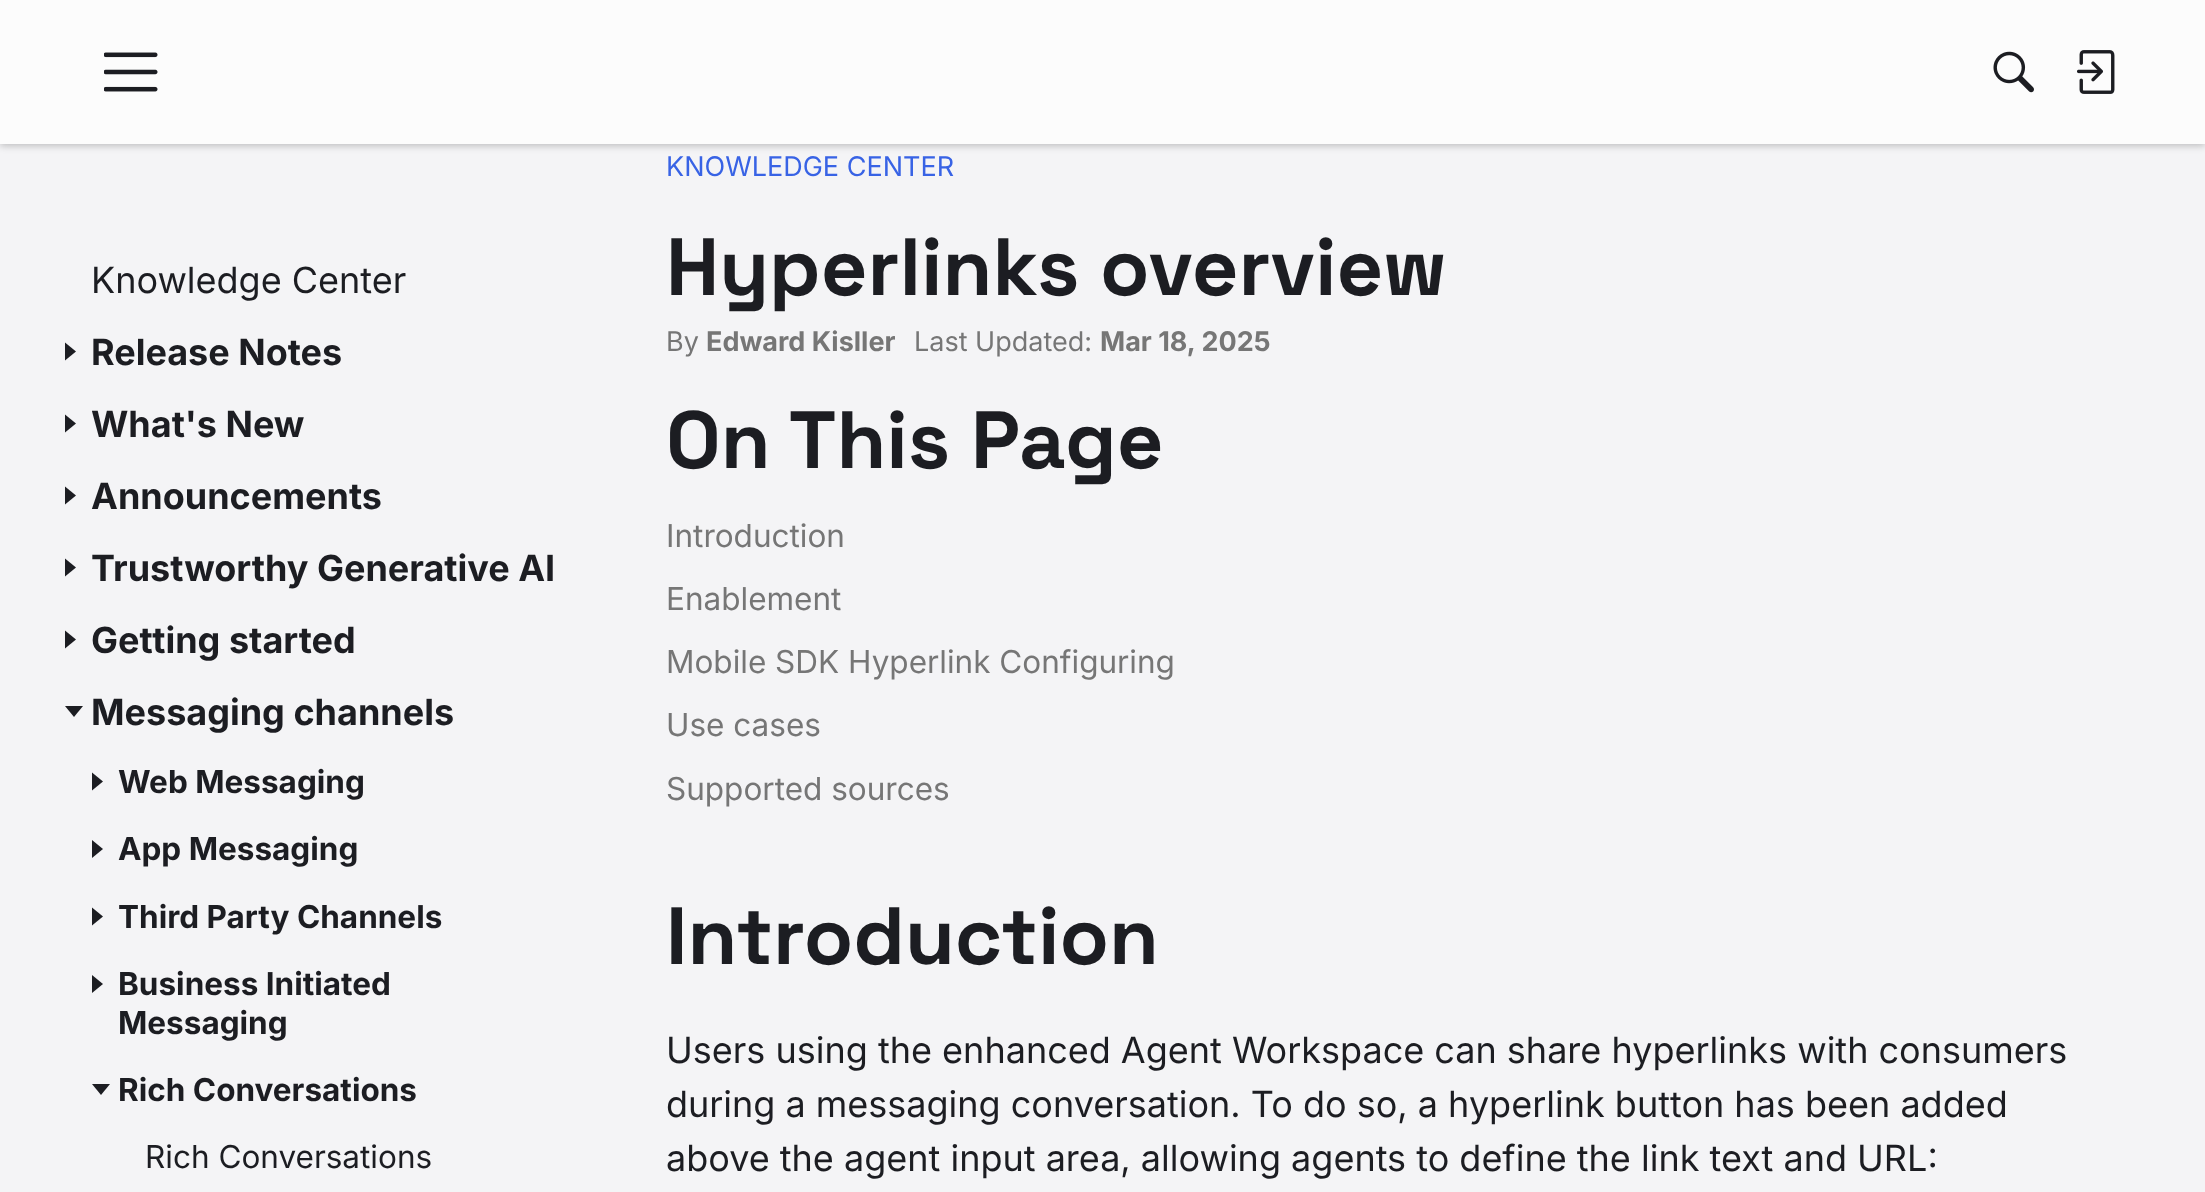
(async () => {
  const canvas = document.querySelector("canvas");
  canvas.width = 2205;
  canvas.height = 1192;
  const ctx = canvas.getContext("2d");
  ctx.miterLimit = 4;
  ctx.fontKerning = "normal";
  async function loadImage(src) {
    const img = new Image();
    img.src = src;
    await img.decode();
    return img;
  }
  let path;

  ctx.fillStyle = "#f4f4f6";
  ctx.fillRect(0, 0, 2205, 1192);
  ctx.fillStyle = "rgba(0, 0, 0, 0.22)";
  ctx.filter = "blur(3.5px)";
  ctx.beginPath();
  ctx.rect(0, 2, 2205, 144);
  ctx.fill();
  ctx.filter = "none";
  ctx.fillStyle = "#fcfcfc";
  ctx.fillRect(0, 0, 2205, 144);
  ctx.drawImage(await loadImage("img/1.png"), 104, 52, 54, 40);
  ctx.drawImage(await loadImage("img/2.png"), 1993, 51, 41, 42);
  ctx.drawImage(await loadImage("img/3.png"), 2077, 50, 38, 44);
  ctx.fillStyle = "#1c1d22";
  path = new Path2D("M65 360.5V342.5L76 351.5Z");
  ctx.fill(path);
  path = new Path2D("M65 432.5V414.5L76 423.5Z");
  ctx.fill(path);
  path = new Path2D("M65 504.5V486.5L76 495.5Z");
  ctx.fill(path);
  path = new Path2D("M65 576.5V558.5L76 567.5Z");
  ctx.fill(path);
  path = new Path2D("M65 648.5V630.5L76 639.5Z");
  ctx.fill(path);
  path = new Path2D("M65 706H83L74 717Z");
  ctx.fill(path);
  path = new Path2D("M92 790.5V772.5L103 781.5Z");
  ctx.fill(path);
  path = new Path2D("M92 858V840L103 849Z");
  ctx.fill(path);
  path = new Path2D("M92 925.5V907.5L103 916.5Z");
  ctx.fill(path);
  path = new Path2D("M92 993V975L103 984Z");
  ctx.fill(path);
  path = new Path2D("M92 1084H110L101 1095Z");
  ctx.fill(path);
  ctx.font = "27px Inter";
  ctx.fillStyle = "#3863e5";
  ctx.fillText("KNOWLEDGE CENTER", 666, 176);
  ctx.font = "36px Inter";
  ctx.fillStyle = "#1c1d22";
  ctx.fillText("Knowledge Center", 91, 293);
  ctx.font = "bold 36px Inter";
  for (const [text, x, y] of [
    ["Release Notes", 91, 365],
    ["What's New", 91, 437],
    ["Announcements", 91, 509],
    ["Trustworthy Generative AI", 91, 581],
    ["Getting started", 91, 653],
    ["Messaging channels", 91, 725],
  ]) {
    ctx.fillText(text, x, y);
  }
  ctx.font = "bold 31.5px Inter";
  for (const [text, x, y] of [
    ["Web Messaging", 118, 793],
    ["App Messaging", 118, 860],
    ["Third Party Channels", 118, 928],
    ["Business Initiated", 118, 995],
    ["Messaging", 118, 1034],
    ["Rich Conversations", 118, 1101],
  ]) {
    ctx.fillText(text, x, y);
  }
  ctx.font = "31.5px Inter";
  ctx.fillText("Rich Conversations", 145, 1168);
  ctx.font = "bold 81px Space Grotesk";
  ctx.fillText("Hyperlinks overview", 666, 295);
  ctx.font = "27px Inter";
  ctx.fillStyle = "#767676";
  ctx.fillText("By", 666, 351);
  ctx.font = "bold 27px Inter";
  ctx.fillText("Edward Kisller", 706, 351);
  ctx.font = "27px Inter";
  ctx.fillText("Last Updated:", 914, 351);
  ctx.font = "bold 27px Inter";
  ctx.fillText("Mar 18, 2025", 1100, 351);
  ctx.font = "bold 81px Space Grotesk";
  ctx.fillStyle = "#1c1d22";
  ctx.fillText("On This Page", 666, 468);
  ctx.font = "31.5px Inter";
  ctx.fillStyle = "#767676";
  for (const [text, x, y] of [
    ["Introduction", 666, 547],
    ["Enablement", 666, 610],
    ["Mobile SDK Hyperlink Configuring", 666, 673],
    ["Use cases", 666, 736],
    ["Supported sources", 666, 800],
  ]) {
    ctx.fillText(text, x, y);
  }
  ctx.font = "bold 81px Space Grotesk";
  ctx.fillStyle = "#1c1d22";
  ctx.fillText("Introduction", 666, 964);
  ctx.font = "36px Inter";
  for (const [text, x, y] of [
    ["Users using the enhanced Agent Workspace can share hyperlinks with consumers", 666, 1063],
    ["during a messaging conversation. To do so, a hyperlink button has been added", 666, 1117],
    ["above the agent input area, allowing agents to define the link text and URL:", 666, 1171],
  ]) {
    ctx.fillText(text, x, y);
  }
})();
